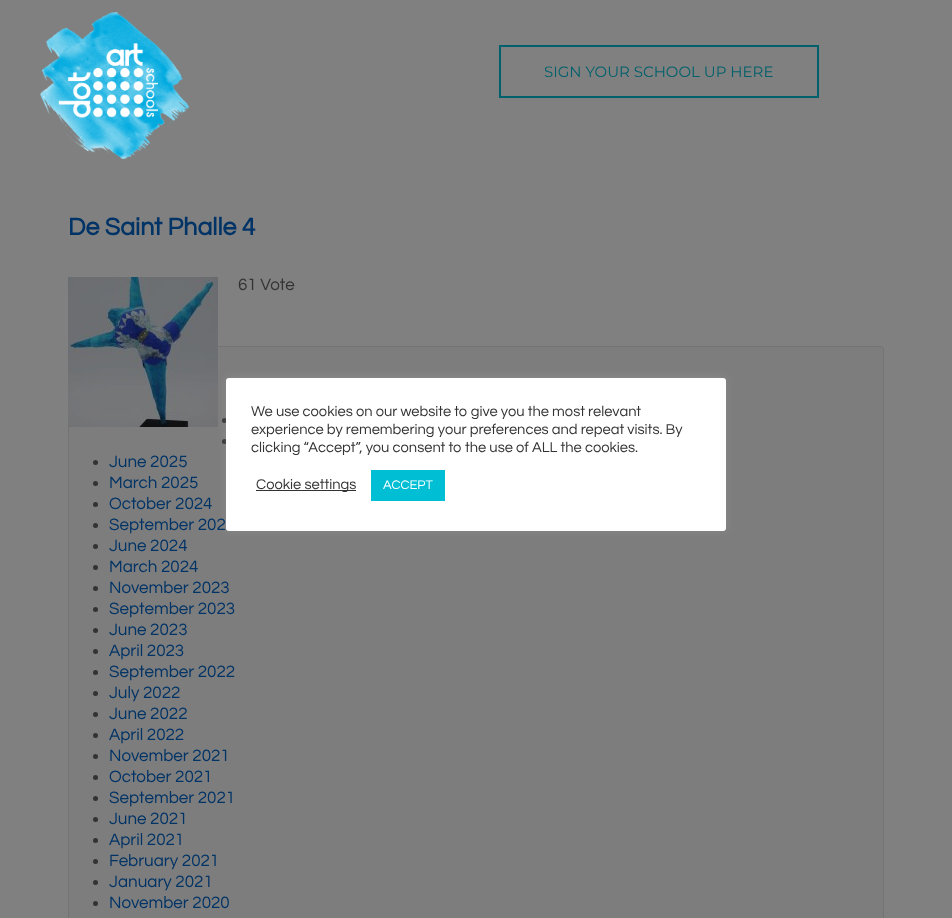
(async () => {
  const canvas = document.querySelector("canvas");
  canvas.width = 952;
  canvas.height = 918;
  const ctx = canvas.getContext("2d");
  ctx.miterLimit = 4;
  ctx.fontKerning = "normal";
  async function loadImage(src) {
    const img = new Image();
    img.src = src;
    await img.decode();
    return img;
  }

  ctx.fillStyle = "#808080";
  ctx.fillRect(0, 0, 952, 918);
  ctx.drawImage(await loadImage("img/1.png"), 40, 12, 150, 148);
  ctx.strokeStyle = "#00606b";
  ctx.lineWidth = 2;
  ctx.strokeRect(500, 46, 318, 51);
  ctx.fillStyle = "#7d7d7d";
  ctx.beginPath();
  ctx.roundRect(68.5, 346.5, 815, 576, 3.5);
  ctx.fill();
  ctx.strokeStyle = "#737373";
  ctx.lineWidth = 1;
  ctx.stroke();
  ctx.drawImage(await loadImage("img/2.png"), 68, 277, 150, 150);
  ctx.fillStyle = "#333333";
  ctx.beginPath();
  ctx.arc(224.5, 420.5, 2.5, 0, Math.PI * 2);
  ctx.fill();
  ctx.beginPath();
  ctx.arc(224.5, 441.5, 2.5, 0, Math.PI * 2);
  ctx.fill();
  ctx.beginPath();
  ctx.arc(95.5, 462.5, 2.5, 0, Math.PI * 2);
  ctx.fill();
  ctx.beginPath();
  ctx.arc(95.5, 483.5, 2.5, 0, Math.PI * 2);
  ctx.fill();
  ctx.beginPath();
  ctx.arc(95.5, 504.5, 2.5, 0, Math.PI * 2);
  ctx.fill();
  ctx.beginPath();
  ctx.arc(95.5, 525.5, 2.5, 0, Math.PI * 2);
  ctx.fill();
  ctx.beginPath();
  ctx.arc(95.5, 546.5, 2.5, 0, Math.PI * 2);
  ctx.fill();
  ctx.beginPath();
  ctx.arc(95.5, 567.5, 2.5, 0, Math.PI * 2);
  ctx.fill();
  ctx.beginPath();
  ctx.arc(95.5, 588.5, 2.5, 0, Math.PI * 2);
  ctx.fill();
  ctx.beginPath();
  ctx.arc(95.5, 609.5, 2.5, 0, Math.PI * 2);
  ctx.fill();
  ctx.beginPath();
  ctx.arc(95.5, 630.5, 2.5, 0, Math.PI * 2);
  ctx.fill();
  ctx.beginPath();
  ctx.arc(95.5, 651.5, 2.5, 0, Math.PI * 2);
  ctx.fill();
  ctx.beginPath();
  ctx.arc(95.5, 672.5, 2.5, 0, Math.PI * 2);
  ctx.fill();
  ctx.beginPath();
  ctx.arc(95.5, 693.5, 2.5, 0, Math.PI * 2);
  ctx.fill();
  ctx.beginPath();
  ctx.arc(95.5, 714.5, 2.5, 0, Math.PI * 2);
  ctx.fill();
  ctx.beginPath();
  ctx.arc(95.5, 735.5, 2.5, 0, Math.PI * 2);
  ctx.fill();
  ctx.beginPath();
  ctx.arc(95.5, 756.5, 2.5, 0, Math.PI * 2);
  ctx.fill();
  ctx.beginPath();
  ctx.arc(95.5, 777.5, 2.5, 0, Math.PI * 2);
  ctx.fill();
  ctx.beginPath();
  ctx.arc(95.5, 798.5, 2.5, 0, Math.PI * 2);
  ctx.fill();
  ctx.beginPath();
  ctx.arc(95.5, 819.5, 2.5, 0, Math.PI * 2);
  ctx.fill();
  ctx.beginPath();
  ctx.arc(95.5, 840.5, 2.5, 0, Math.PI * 2);
  ctx.fill();
  ctx.beginPath();
  ctx.arc(95.5, 861.5, 2.5, 0, Math.PI * 2);
  ctx.fill();
  ctx.beginPath();
  ctx.arc(95.5, 882.5, 2.5, 0, Math.PI * 2);
  ctx.fill();
  ctx.beginPath();
  ctx.arc(95.5, 903.5, 2.5, 0, Math.PI * 2);
  ctx.fill();
  ctx.fillStyle = "rgba(172, 171, 171, 0.3)";
  ctx.filter = "blur(5px)";
  ctx.beginPath();
  ctx.roundRect(226, 377, 500, 153, 3);
  ctx.fill();
  ctx.filter = "none";
  ctx.fillStyle = "#ffffff";
  ctx.beginPath();
  ctx.roundRect(226, 378, 500, 153, 3);
  ctx.fill();
  ctx.fillStyle = "#333333";
  ctx.fillRect(256, 490, 100, 1);
  ctx.fillStyle = "#00bfd5";
  ctx.fillRect(371, 470, 74, 31);
  ctx.font = "15px Montserrat";
  ctx.fillStyle = "#00606b";
  ctx.fillText("SIGN YOUR SCHOOL UP HERE", 544, 77);
  ctx.font = "bold 25px Questrial";
  ctx.fillStyle = "#003366";
  ctx.fillText("De Saint Phalle 4", 68, 235);
  ctx.font = "17px Questrial";
  ctx.fillStyle = "#333333";
  ctx.fillText("61 Vote", 238, 290);
  ctx.fillStyle = "#003366";
  for (const [text, x, y] of [
    ["June 2025", 109, 467],
    ["March 2025", 109, 488],
    ["October 2024", 109, 509],
    ["September 202", 109, 530],
    ["June 2024", 109, 551],
    ["March 2024", 109, 572],
    ["November 2023", 109, 593],
    ["September 2023", 109, 614],
    ["June 2023", 109, 635],
    ["April 2023", 109, 656],
    ["September 2022", 109, 677],
    ["July 2022", 109, 698],
    ["June 2022", 109, 719],
    ["April 2022", 109, 740],
    ["November 2021", 109, 761],
    ["October 2021", 109, 782],
    ["September 2021", 109, 803],
    ["June 2021", 109, 824],
    ["April 2021", 109, 845],
    ["February 2021", 109, 866],
    ["January 2021", 109, 887],
    ["November 2020", 109, 908],
  ]) {
    ctx.fillText(text, x, y);
  }
  ctx.font = "14.7px Questrial";
  ctx.fillStyle = "#333333";
  for (const [text, x, y] of [
    ["We use cookies on our website to give you the most relevant", 251, 416],
    ["experience by remembering your preferences and repeat visits. By", 251, 434],
    ["clicking “Accept”, you consent to the use of ALL the cookies.", 251, 452],
    ["Cookie settings", 256, 489],
  ]) {
    ctx.fillText(text, x, y);
  }
  ctx.font = "13px Questrial";
  ctx.fillStyle = "#ffffff";
  ctx.fillText("ACCEPT", 383, 489);
})();
